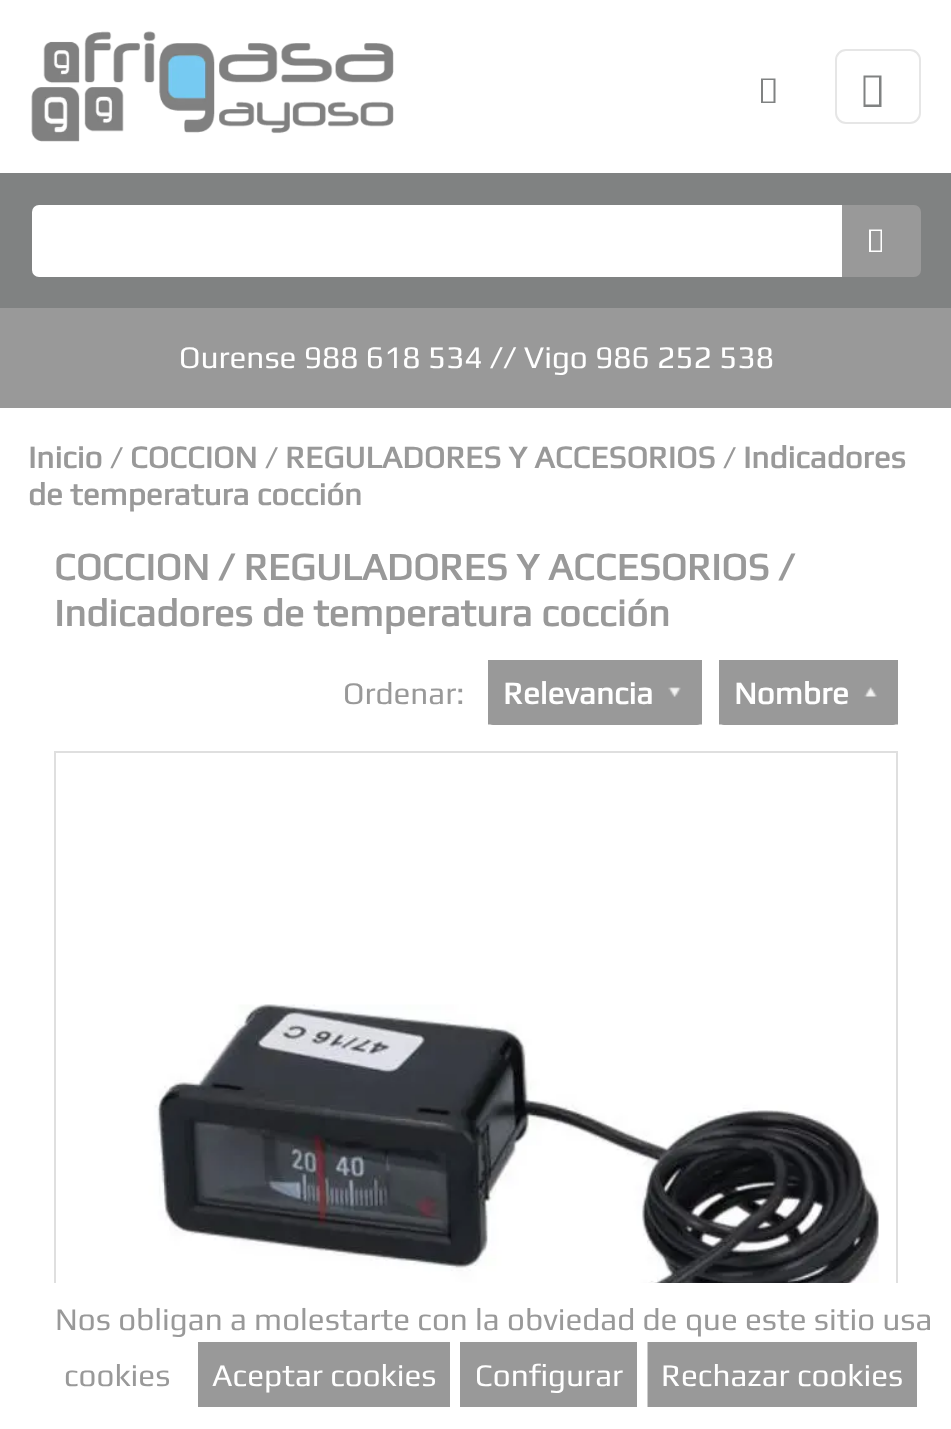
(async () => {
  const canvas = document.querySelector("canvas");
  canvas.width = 951;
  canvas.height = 1429;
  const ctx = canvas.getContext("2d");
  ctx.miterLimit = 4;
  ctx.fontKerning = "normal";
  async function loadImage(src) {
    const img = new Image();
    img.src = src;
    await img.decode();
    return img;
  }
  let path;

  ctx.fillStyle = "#ffffff";
  ctx.fillRect(0, 0, 951, 1429);
  ctx.drawImage(await loadImage("img/1.png"), 31, 31, 363, 111);
  ctx.fillStyle = "#808282";
  path = new Path2D("M761 103V78.5H775.5V103ZM763 101.5H773.5V80H763Z");
  ctx.fill(path);
  ctx.beginPath();
  ctx.roundRect(836, 50, 84, 73, 10);
  ctx.strokeStyle = "#e6e6e6";
  ctx.lineWidth = 2;
  ctx.stroke();
  path = new Path2D("M863.5 107V75.5H881.5V107ZM865.5 104.5H879V77.5H865.5Z");
  ctx.fill(path);
  ctx.fillRect(0, 173, 951, 135);
  ctx.fillStyle = "#ffffff";
  ctx.beginPath();
  ctx.roundRect(32, 205, 810, 72, [7, 0, 0, 7]);
  ctx.fill();
  ctx.fillStyle = "#999999";
  ctx.beginPath();
  ctx.roundRect(842, 205, 79, 72, [0, 7, 7, 0]);
  ctx.fill();
  ctx.fillStyle = "#ffffff";
  path = new Path2D("M869 252V229.5H882V252ZM871 250.5H880.5V231H871Z");
  ctx.fill(path);
  ctx.fillStyle = "#999999";
  ctx.fillRect(0, 308, 951, 100);
  ctx.beginPath();
  ctx.roundRect(488, 660, 214, 65, 5);
  ctx.fill();
  ctx.drawImage(await loadImage("img/2.png"), 668, 687, 13, 10);
  path = new Path2D("M495 667H695V717.5H495Z");
  ctx.strokeStyle = "#999999";
  ctx.lineWidth = 14;
  ctx.stroke(path);
  ctx.beginPath();
  ctx.roundRect(719, 660, 179, 65, 5);
  ctx.fill();
  ctx.drawImage(await loadImage("img/3.png"), 864, 687, 13, 10);
  path = new Path2D("M726 667H891V717.5H726Z");
  ctx.stroke(path);
  ctx.strokeStyle = "#dfdfdf";
  ctx.lineWidth = 2;
  ctx.strokeRect(55, 752, 842, 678);
  ctx.drawImage(await loadImage("img/4.png"), 73, 1004, 806, 279);
  ctx.fillStyle = "#ffffff";
  ctx.fillRect(54, 1283, 844, 146);
  ctx.fillStyle = "#999999";
  ctx.fillRect(212, 1356, 224, 37);
  path = new Path2D("M205 1349H443V1400H205Z");
  ctx.strokeStyle = "#999999";
  ctx.lineWidth = 14;
  ctx.stroke(path);
  ctx.fillRect(474, 1356, 149, 37);
  path = new Path2D("M467 1349H630V1400H467Z");
  ctx.stroke(path);
  ctx.fillRect(661, 1356, 242, 37);
  path = new Path2D("M654.5 1349H910V1400H654.5Z");
  ctx.stroke(path);
  ctx.font = "31.5px Play";
  ctx.fillStyle = "#ffffff";
  ctx.fillText("Ourense 988 618 534 // Vigo 986 252 538", 179, 368);
  ctx.font = "bold 31.5px Play";
  ctx.fillStyle = "#999999";
  ctx.fillText("Inicio", 28, 468);
  ctx.font = "31.5px Play";
  ctx.fillText("/", 110, 468);
  ctx.font = "bold 31.5px Play";
  ctx.fillText("COCCION", 130, 468);
  ctx.font = "31.5px Play";
  ctx.fillText("/", 265, 468);
  ctx.font = "bold 31.5px Play";
  ctx.fillText("REGULADORES Y ACCESORIOS", 285, 468);
  ctx.font = "31.5px Play";
  ctx.fillText("/", 723, 468);
  ctx.font = "bold 31.5px Play";
  ctx.fillText("Indicadores", 743, 468);
  ctx.fillText("de temperatura cocción", 28, 505);
  ctx.font = "bold 38.5px Play";
  ctx.fillText("COCCION / REGULADORES Y ACCESORIOS /", 54, 580);
  ctx.fillText("Indicadores de temperatura cocción", 54, 626);
  ctx.font = "31.5px Play";
  ctx.fillText("Ordenar:", 343, 704);
  ctx.font = "bold 31.5px Play";
  ctx.fillStyle = "#ffffff";
  ctx.fillText("Relevancia", 503, 704);
  ctx.fillText("Nombre", 734, 704);
  ctx.font = "31.5px Play";
  ctx.fillStyle = "#999999";
  ctx.fillText("Nos obligan a molestarte con la obviedad de que este sitio usa", 55, 1330);
  ctx.fillText("cookies", 64, 1386);
  ctx.fillStyle = "#ffffff";
  for (const [text, x, y] of [
    ["Aceptar cookies", 212, 1386],
    ["Configurar", 475, 1386],
    ["Rechazar cookies", 661, 1386],
  ]) {
    ctx.fillText(text, x, y);
  }
})();
